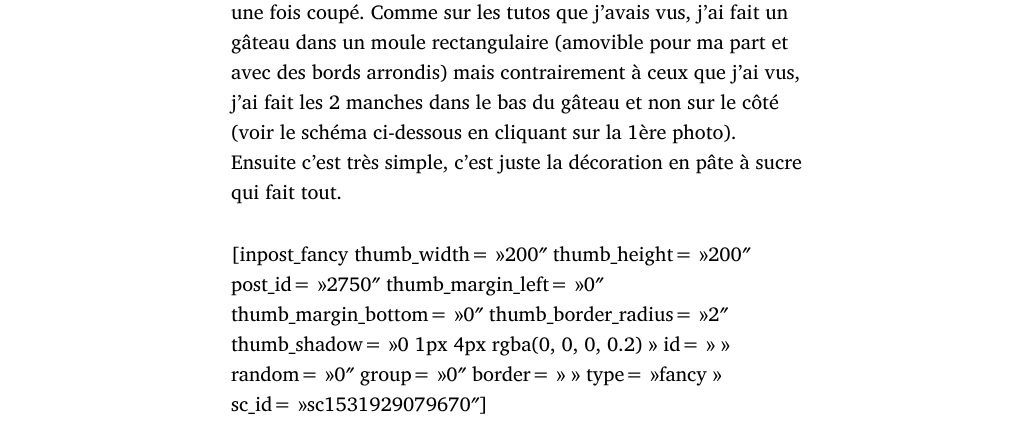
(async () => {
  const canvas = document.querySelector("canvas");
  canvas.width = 1034;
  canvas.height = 448;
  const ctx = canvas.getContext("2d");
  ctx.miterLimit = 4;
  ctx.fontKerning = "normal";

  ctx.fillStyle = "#ffffff";
  ctx.fillRect(0, 0, 1034, 448);
  ctx.font = "20px Charis SIL";
  ctx.fillStyle = "#000000";
  for (const [text, x, y] of [
    ["une fois coupé. Comme sur les tutos que j’avais vus, j’ai fait un", 231, 19],
    ["gâteau dans un moule rectangulaire (amovible pour ma part et", 231, 49],
    ["avec des bords arrondis) mais contrairement à ceux que j’ai vus,", 231, 79],
    ["j’ai fait les 2 manches dans le bas du gâteau et non sur le côté", 231, 109],
    ["(voir le schéma ci-dessous en cliquant sur la 1ère photo).", 231, 139],
    ["Ensuite c’est très simple, c’est juste la décoration en pâte à sucre", 231, 169],
    ["qui fait tout.", 231, 199],
    ["[inpost_fancy thumb_width= »200″ thumb_height= »200″", 231, 261],
    ["post_id= »2750″ thumb_margin_left= »0″", 231, 291],
    ["thumb_margin_bottom= »0″ thumb_border_radius= »2″", 231, 321],
    ["thumb_shadow= »0 1px 4px rgba(0, 0, 0, 0.2) » id= » »", 231, 351],
    ["random= »0″ group= »0″ border= » » type= »fancy »", 231, 381],
    ["sc_id= »sc1531929079670″]", 231, 411],
  ]) {
    ctx.fillText(text, x, y);
  }
})();
